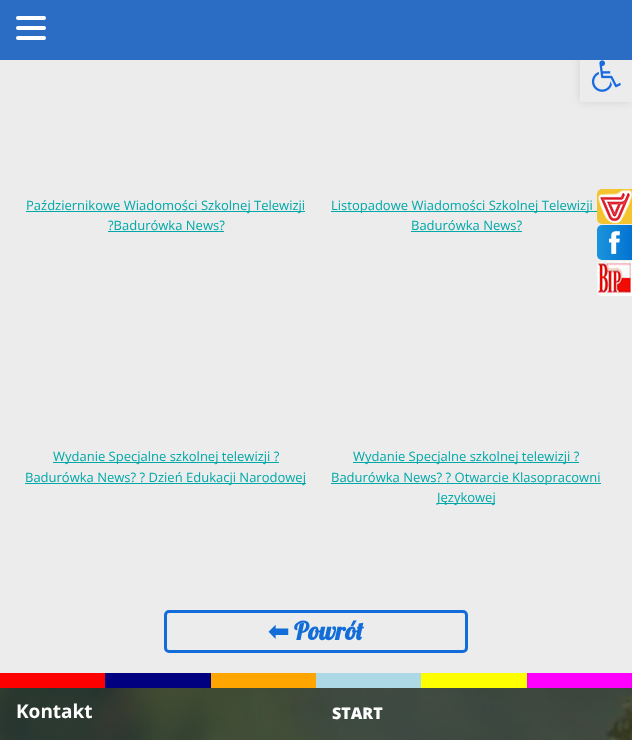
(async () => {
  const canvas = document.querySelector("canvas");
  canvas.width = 632;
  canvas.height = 740;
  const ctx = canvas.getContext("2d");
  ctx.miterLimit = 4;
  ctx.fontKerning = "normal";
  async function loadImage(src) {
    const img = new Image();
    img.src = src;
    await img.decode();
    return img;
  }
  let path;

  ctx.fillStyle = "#ffffff";
  ctx.fillRect(0, 0, 632, 740);
  ctx.drawImage(await loadImage("img/1.png"), 232, 688, 389, 52);
  ctx.fillStyle = "#ececec";
  ctx.fillRect(0, 60, 632, 613);
  ctx.save();
  path = new Path2D("M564 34H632V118H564ZM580 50H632V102H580Z");
  ctx.clip(path, "evenodd");
  ctx.fillStyle = "rgba(0, 0, 0, 0.1)";
  ctx.filter = "blur(5px)";
  ctx.beginPath();
  ctx.rect(580, 50, 52, 52);
  ctx.fill();
  ctx.filter = "none";
  ctx.restore();
  ctx.fillStyle = "#2b6dc4";
  ctx.fillRect(0, 0, 632, 60);
  ctx.fillStyle = "#ffffff";
  ctx.beginPath();
  ctx.roundRect(16, 16, 30, 4, 2);
  ctx.fill();
  ctx.beginPath();
  ctx.roundRect(16, 26, 30, 4, 2);
  ctx.fill();
  ctx.beginPath();
  ctx.roundRect(16, 36, 30, 4, 2);
  ctx.fill();
  ctx.drawImage(await loadImage("img/2.png"), 591, 60, 30, 32);
  for (const [x, y, w, h, color] of [
    [26, 211, 279, 1, "#00a8a8"],
    [108, 231, 116, 1, "#00a8a8"],
    [331, 211, 270, 1, "#00a8a8"],
    [411, 231, 111, 1, "#00a8a8"],
    [53, 462, 226, 1, "#00a8a8"],
    [25, 483, 281, 1, "#00a8a8"],
    [353, 462, 226, 1, "#00a8a8"],
    [331, 483, 270, 1, "#00a8a8"],
    [437, 503, 58, 1, "#00a8a8"],
  ]) {
    ctx.fillStyle = color;
    ctx.fillRect(x, y, w, h);
  }
  ctx.beginPath();
  ctx.roundRect(165.5, 611.5, 301, 40, 3.5);
  ctx.strokeStyle = "#126dd9";
  ctx.lineWidth = 3;
  ctx.stroke();
  ctx.drawImage(await loadImage("img/3.png"), 597, 189, 35, 35);
  ctx.drawImage(await loadImage("img/4.png"), 597, 225, 35, 35);
  ctx.drawImage(await loadImage("img/5.png"), 597, 261, 35, 35);
  ctx.drawImage(await loadImage("img/6.png"), 0, 688, 632, 52);
  for (const [x, y, w, h, color] of [
    [0, 673, 105, 15, "#ff0000"],
    [105, 673, 106, 15, "#000080"],
    [211, 673, 105, 15, "#ffa500"],
    [316, 673, 105, 15, "#add8e6"],
    [421, 673, 106, 15, "#ffff00"],
    [527, 673, 105, 15, "#ff00ff"],
  ]) {
    ctx.fillStyle = color;
    ctx.fillRect(x, y, w, h);
  }
  ctx.font = "13px Open Sans";
  ctx.fillStyle = "#00a8a8";
  for (const [text, x, y] of [
    ["Październikowe Wiadomości Szkolnej Telewizji", 26, 210],
    ["?Badurówka News?", 108, 230],
    ["Listopadowe Wiadomości Szkolnej Telewizji", 331, 210],
    ["Badurówka News?", 411, 230],
    ["Wydanie Specjalne szkolnej telewizji ?", 53, 461],
    ["Badurówka News? ? Dzień Edukacji Narodowej", 25, 482],
    ["Wydanie Specjalne szkolnej telewizji ?", 353, 461],
    ["Badurówka News? ? Otwarcie Klasopracowni", 331, 482],
    ["Językowej", 437, 502],
  ]) {
    ctx.fillText(text, x, y);
  }
  ctx.font = "bold 25px DejaVu Sans";
  ctx.fillStyle = "#126dd9";
  ctx.fillText("⬅", 268, 640);
  ctx.font = "bold 25px Lobster";
  ctx.fillText("Powrót", 294, 640);
  ctx.font = "bold 19px Open Sans";
  ctx.fillStyle = "#ffffff";
  ctx.fillText("Kontakt", 16, 718);
  ctx.font = "800 16px Open Sans";
  ctx.fillText("START", 332, 719);
})();
